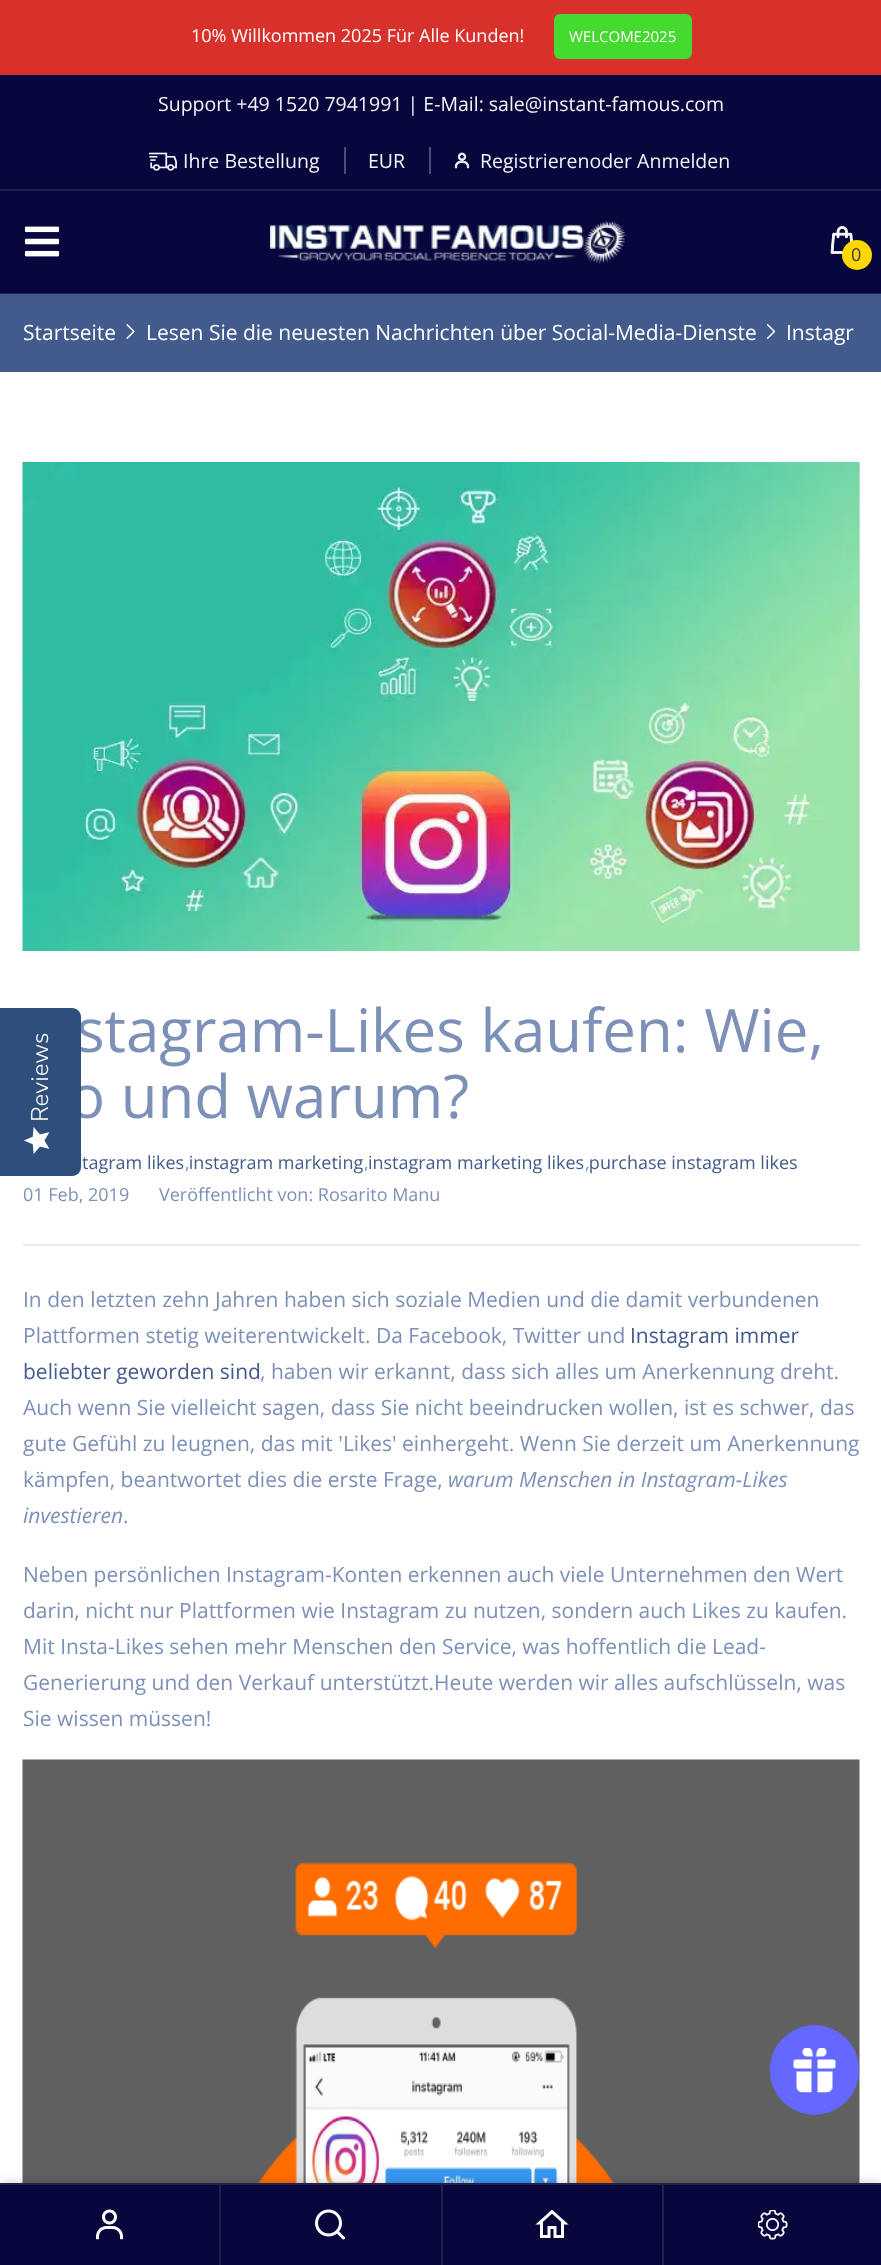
(async () => {
  const canvas = document.querySelector("canvas");
  canvas.width = 881;
  canvas.height = 2265;
  const ctx = canvas.getContext("2d");
  ctx.miterLimit = 4;
  ctx.fontKerning = "normal";
  async function loadImage(src) {
    const img = new Image();
    img.src = src;
    await img.decode();
    return img;
  }
  let path;

  ctx.fillStyle = "#ffffff";
  ctx.fillRect(0, 0, 881, 2265);
  ctx.fillStyle = "#d8302b";
  ctx.fillRect(0, 0, 881, 75);
  ctx.fillStyle = "#44da2f";
  ctx.beginPath();
  ctx.roundRect(554, 14, 138, 45, 6);
  ctx.fill();
  ctx.fillStyle = "#08073d";
  ctx.fillRect(0, 75, 881, 114);
  ctx.drawImage(await loadImage("img/1.png"), 149, 152, 28, 19);
  ctx.fillStyle = "#4c4b71";
  ctx.fillRect(344, 147, 2, 27);
  ctx.fillRect(429, 147, 2, 27);
  ctx.drawImage(await loadImage("img/2.png"), 454, 152, 16, 17);
  for (const [x, y, w, h, color] of [
    [0, 191, 881, 102, "#08073d"],
    [0, 189, 881, 2, "#22214e"],
    [0, 293, 881, 1, "#22214e"],
  ]) {
    ctx.fillStyle = color;
    ctx.fillRect(x, y, w, h);
  }
  ctx.drawImage(await loadImage("img/3.png"), 24, 226, 36, 31);
  ctx.drawImage(await loadImage("img/4.png"), 270, 221, 357, 44);
  ctx.drawImage(await loadImage("img/5.png"), 830, 226, 23, 28);
  ctx.fillStyle = "#fed800";
  ctx.beginPath();
  ctx.arc(857, 255, 15, 0, Math.PI * 2);
  ctx.fill();
  ctx.fillStyle = "#435b8c";
  ctx.fillRect(0, 294, 881, 78);
  ctx.drawImage(await loadImage("img/6.png"), 126, 324, 9, 15);
  ctx.drawImage(await loadImage("img/7.png"), 766, 324, 10, 15);
  ctx.fillStyle = "#e6e6e6";
  ctx.fillRect(859, 462, 1, 489);
  ctx.drawImage(await loadImage("img/8.png"), 22, 462, 838, 489);
  ctx.fillStyle = "#eaeaea";
  ctx.fillRect(23, 1244, 837, 2);
  ctx.drawImage(await loadImage("img/9.png"), 22, 1759, 838, 424);
  ctx.drawImage(await loadImage("img/11.png"), 769, 2025, 91, 90);
  ctx.fillStyle = "rgba(0, 0, 0, 0.2)";
  ctx.filter = "blur(5px)";
  ctx.beginPath();
  ctx.rect(0, 2183, 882, 82);
  ctx.fill();
  ctx.filter = "none";
  for (const [x, y, w, h, color] of [
    [0, 2185, 881, 80, "#08073d"],
    [0, 2183, 881, 2, "#22214e"],
    [219, 2184, 2, 81, "#22214e"],
  ]) {
    ctx.fillStyle = color;
    ctx.fillRect(x, y, w, h);
  }
  ctx.drawImage(await loadImage("img/12.png"), 96, 2209, 27, 31);
  ctx.fillRect(441, 2184, 2, 81);
  ctx.drawImage(await loadImage("img/13.png"), 315, 2209, 30, 31);
  ctx.fillRect(662, 2184, 2, 81);
  ctx.drawImage(await loadImage("img/14.png"), 535, 2209, 34, 29);
  ctx.drawImage(await loadImage("img/15.png"), 758, 2210, 30, 30);
  ctx.font = "18px Open Sans";
  ctx.fillStyle = "#ffffff";
  ctx.fillText("10% Willkommen 2025 Für Alle Kunden!", 191, 42);
  ctx.font = "15px Open Sans";
  ctx.fillText("WELCOME2025", 569, 42);
  ctx.font = "19.5px Open Sans";
  ctx.fillStyle = "#f3f5f8";
  for (const [text, x, y] of [
    ["Support +49 1520 7941991 | E-Mail: sale@instant-famous.com", 158, 111],
    ["Ihre Bestellung", 183, 168],
    ["EUR", 368, 168],
    ["Registrierenoder Anmelden", 480, 168],
  ]) {
    ctx.fillText(text, x, y);
  }
  ctx.font = "18px Open Sans";
  ctx.fillStyle = "#3a3a3a";
  ctx.fillText("0", 851, 261);
  ctx.font = "21px Open Sans";
  ctx.fillStyle = "#ffffff";
  for (const [text, x, y] of [
    ["Startseite", 23, 340],
    ["Lesen Sie die neuesten Nachrichten über Social-Media-Dienste", 146, 340],
    ["Instagr", 786, 340],
  ]) {
    ctx.fillText(text, x, y);
  }
  ctx.font = "60px Open Sans";
  ctx.fillStyle = "#7d90b8";
  ctx.fillText("stagram-Likes kaufen: Wie,", 76, 1052);
  ctx.fillText("o und warum?", 69, 1118);
  ctx.font = "18px Open Sans";
  ctx.fillStyle = "#435b8c";
  ctx.fillText("tagram likes instagram marketing instagram marketing likes purchase instagram likes", 82, 1169);
  ctx.fillStyle = "#7d90b8";
  for (const [text, x, y] of [
    [",", 185, 1169],
    [",", 364, 1169],
    [",", 585, 1169],
    ["01 Feb, 2019", 23, 1201],
    ["Veröffentlicht von: Rosarito Manu", 159, 1201],
  ]) {
    ctx.fillText(text, x, y);
  }
  ctx.font = "21px Open Sans";
  ctx.fillText("In den letzten zehn Jahren haben sich soziale Medien und die damit verbundenen", 23, 1307);
  ctx.fillText("Plattformen stetig weiterentwickelt. Da Facebook, Twitter und", 23, 1343);
  ctx.fillStyle = "#435b8c";
  ctx.fillText("Instagram immer", 630, 1343);
  ctx.fillText("beliebter geworden sind", 23, 1379);
  ctx.fillStyle = "#7d90b8";
  for (const [text, x, y] of [
    [", haben wir erkannt, dass sich alles um Anerkennung dreht.", 260, 1379],
    ["Auch wenn Sie vielleicht sagen, dass Sie nicht beeindrucken wollen, ist es schwer, das", 23, 1415],
    ["gute Gefühl zu leugnen, das mit 'Likes' einhergeht. Wenn Sie derzeit um Anerkennung", 23, 1451],
    ["kämpfen, beantwortet dies die erste Frage,", 23, 1487],
  ]) {
    ctx.fillText(text, x, y);
  }
  ctx.font = "italic 21px Open Sans";
  ctx.fillText("warum Menschen in Instagram-Likes", 448, 1487);
  ctx.fillText("investieren", 23, 1523);
  ctx.font = "21px Open Sans";
  for (const [text, x, y] of [
    [".", 123, 1523],
    ["Neben persönlichen Instagram-Konten erkennen auch viele Unternehmen den Wert", 23, 1582],
    ["darin, nicht nur Plattformen wie Instagram zu nutzen, sondern auch Likes zu kaufen.", 23, 1618],
    ["Mit Insta-Likes sehen mehr Menschen den Service, was hoffentlich die Lead-", 23, 1654],
    ["Generierung und den Verkauf unterstützt.Heute werden wir alles aufschlüsseln, was", 23, 1690],
    ["Sie wissen müssen!", 23, 1726],
  ]) {
    ctx.fillText(text, x, y);
  }
  ctx.fillStyle = "#2e4f7c";
  path = new Path2D("M0 1176V1008H72C77 1008 81 1012 81 1017V1167C81 1172 77 1176 72 1176Z");
  ctx.fill(path);
  ctx.font = "300 24px Nunito Sans";
  ctx.fillStyle = "#ffffff";
  ctx.save();
  ctx.translate(48, 1122);
  ctx.rotate(-90 * Math.PI / 180);
  ctx.fillText("Reviews", 0, 0);
  ctx.restore();
  ctx.drawImage(await loadImage("img/10.png"), 24, 1127, 26, 27);
})();
